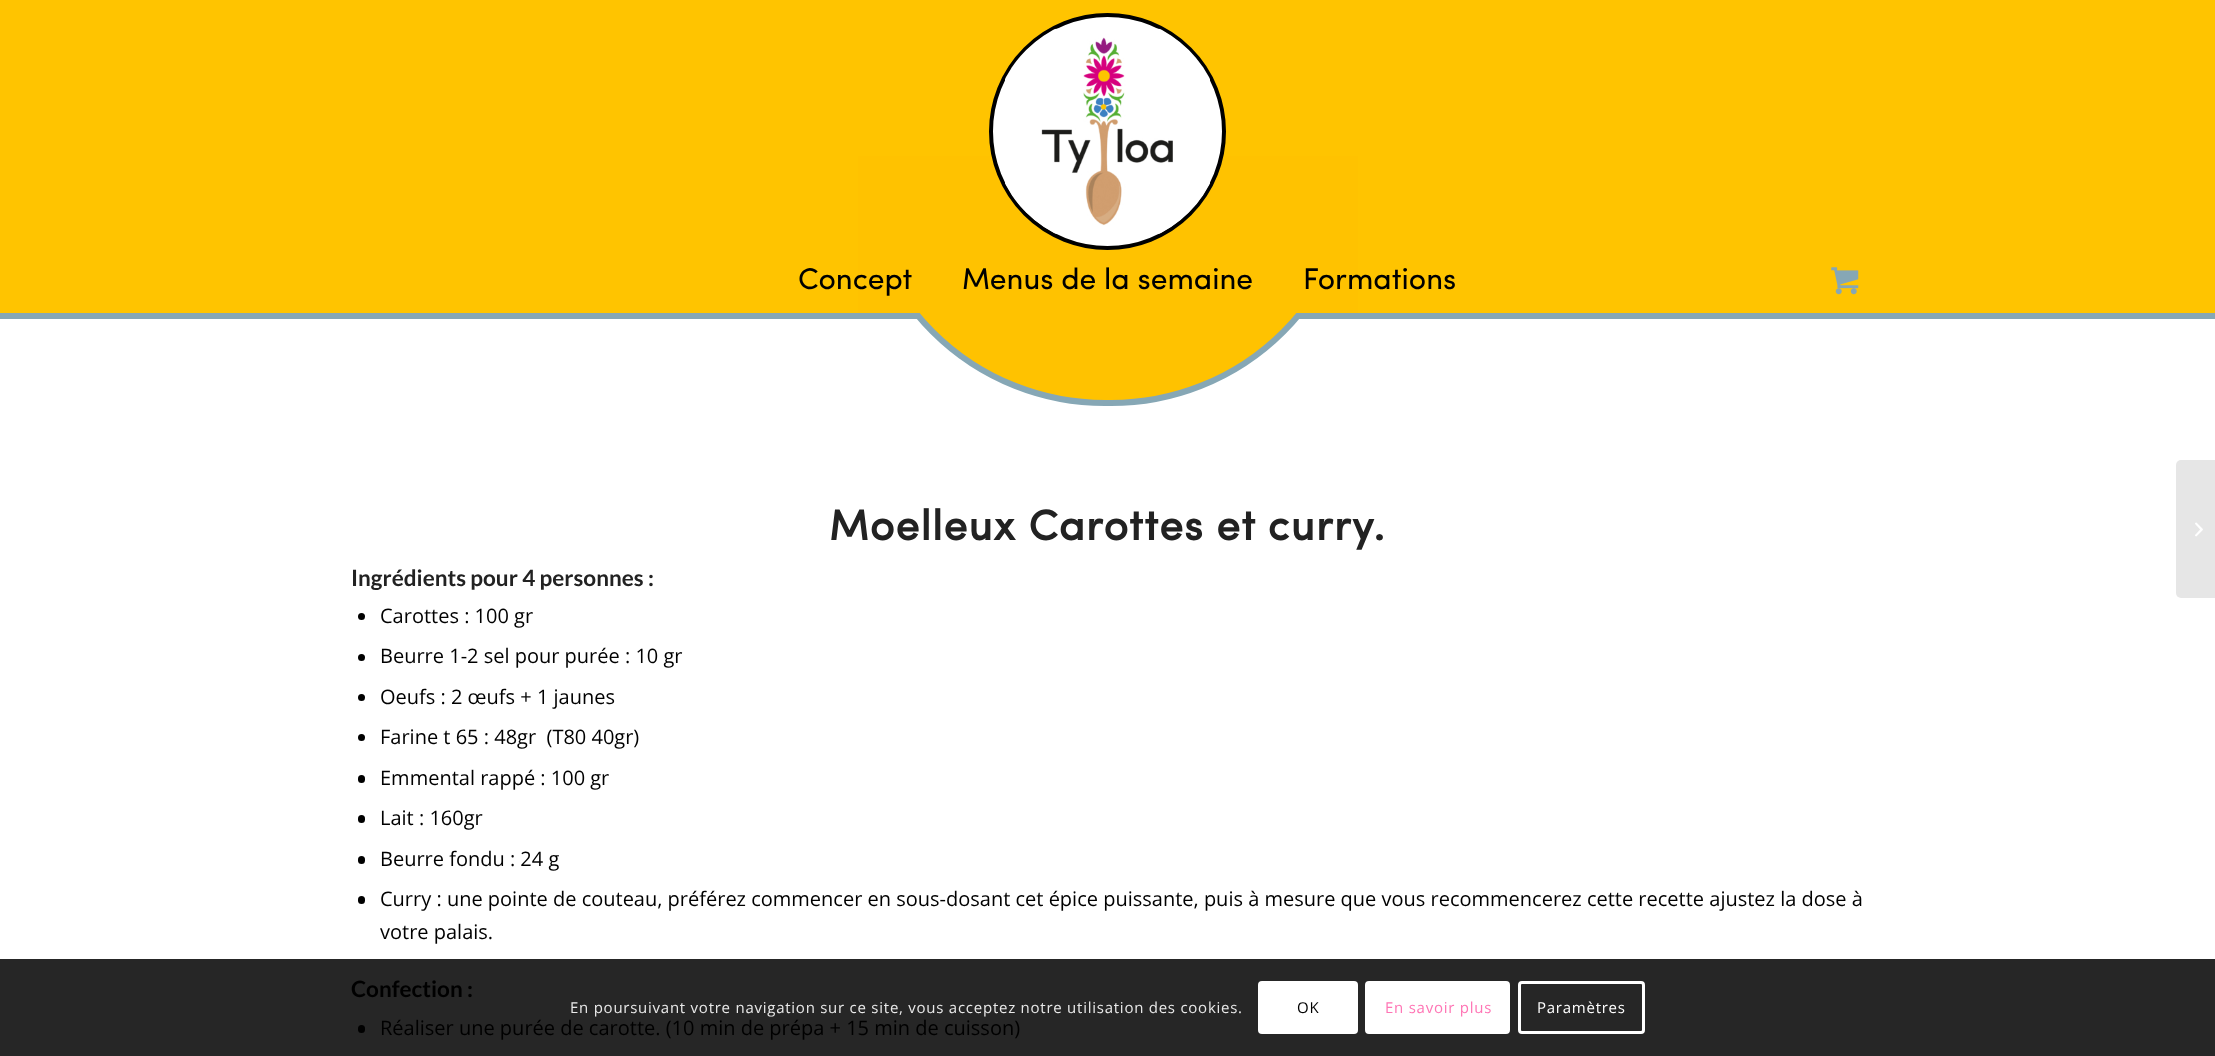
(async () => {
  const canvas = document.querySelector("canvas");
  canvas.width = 2215;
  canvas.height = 1056;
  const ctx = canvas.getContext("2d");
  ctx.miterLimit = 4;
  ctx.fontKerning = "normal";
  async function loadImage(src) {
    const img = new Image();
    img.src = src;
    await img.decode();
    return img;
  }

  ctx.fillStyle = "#ffffff";
  ctx.fillRect(0, 0, 2215, 1056);
  ctx.fillStyle = "#ffc400";
  ctx.fillRect(0, 0, 2215, 313);
  ctx.fillStyle = "#86a7b5";
  ctx.fillRect(0, 313, 2215, 6);
  ctx.fillStyle = "#ffc200";
  ctx.beginPath();
  ctx.roundRect(861, 159, 494, 244, [0, 0, 247, 247]);
  ctx.fill();
  ctx.strokeStyle = "#86a7b5";
  ctx.lineWidth = 6;
  ctx.stroke();
  ctx.fillRect(858, 156, 500, 157);
  ctx.fillStyle = "#ffffff";
  ctx.beginPath();
  ctx.arc(1107.5, 131.5, 116.5, 0, Math.PI * 2);
  ctx.fill();
  ctx.strokeStyle = "#000000";
  ctx.lineWidth = 4;
  ctx.stroke();
  ctx.drawImage(await loadImage("img/1.png"), 1005, 28, 205, 206);
  ctx.drawImage(await loadImage("img/2.png"), 1831, 267, 28, 28);
  ctx.fillStyle = "#262626";
  ctx.fillRect(0, 959, 2215, 97);
  ctx.fillStyle = "#000000";
  ctx.beginPath();
  ctx.arc(361.5, 616.5, 3.5, 0, Math.PI * 2);
  ctx.fill();
  ctx.beginPath();
  ctx.arc(361.5, 657.5, 3.5, 0, Math.PI * 2);
  ctx.fill();
  ctx.beginPath();
  ctx.arc(361.5, 697.5, 3.5, 0, Math.PI * 2);
  ctx.fill();
  ctx.beginPath();
  ctx.arc(361.5, 737.5, 3.5, 0, Math.PI * 2);
  ctx.fill();
  ctx.beginPath();
  ctx.roundRect(358, 775, 7, 8, 3.5);
  ctx.fill();
  ctx.beginPath();
  ctx.roundRect(358, 815, 7, 8, 3.5);
  ctx.fill();
  ctx.beginPath();
  ctx.roundRect(358, 856, 7, 8, 3.5);
  ctx.fill();
  ctx.beginPath();
  ctx.roundRect(358, 896, 7, 8, 3.5);
  ctx.fill();
  ctx.beginPath();
  ctx.roundRect(358, 1025, 7, 8, 3.5);
  ctx.fill();
  ctx.fillStyle = "#e6e6e6";
  ctx.beginPath();
  ctx.roundRect(2176, 460, 39, 138, [5, 0, 0, 5]);
  ctx.fill();
  ctx.drawImage(await loadImage("img/3.png"), 2195, 522, 8, 15);
  ctx.fillStyle = "#ffffff";
  ctx.beginPath();
  ctx.roundRect(1258, 981, 100, 53, 4);
  ctx.fill();
  ctx.beginPath();
  ctx.roundRect(1366.5, 982.5, 142, 50, 2.5);
  ctx.fill();
  ctx.strokeStyle = "#ffffff";
  ctx.lineWidth = 3;
  ctx.stroke();
  ctx.beginPath();
  ctx.roundRect(1519.5, 982.5, 124, 50, 2.5);
  ctx.stroke();
  ctx.font = "30px Sofia";
  ctx.fillStyle = "#000000";
  for (const [text, x, y] of [
    ["Concept", 798, 289],
    ["Menus de la semaine", 962, 289],
    ["Formations", 1303, 289],
  ]) {
    ctx.fillText(text, x, y);
  }
  ctx.letterSpacing = "1.25px";
  ctx.font = "bold 42.5px Sofia";
  ctx.fillStyle = "#222222";
  ctx.fillText("Moelleux Carottes et curry.", 829, 540);
  ctx.letterSpacing = "0px";
  ctx.font = "bold 22.5px Lato";
  ctx.fillText("Ingrédients pour 4 personnes :", 351, 586);
  ctx.font = "20px Open Sans";
  ctx.fillStyle = "#000000";
  for (const [text, x, y] of [
    ["Carottes : 100 gr", 380, 623],
    ["Beurre 1-2 sel pour purée : 10 gr", 380, 663],
    ["Oeufs : 2 œufs + 1 jaunes", 380, 704],
    ["Farine t 65 : 48gr  (T80 40gr)", 380, 744],
    ["Emmental rappé : 100 gr", 380, 785],
    ["Lait : 160gr", 380, 825],
    ["Beurre fondu : 24 g", 380, 866],
    ["Curry : une pointe de couteau, préférez commencer en sous-dosant cet épice puissante, puis à mesure que vous recommencerez cette recette ajustez la dose à", 380, 906],
    ["votre palais.", 380, 939],
  ]) {
    ctx.fillText(text, x, y);
  }
  ctx.font = "bold 22.5px Lato";
  ctx.fillText("Confection :", 351, 997);
  ctx.font = "20px Open Sans";
  ctx.fillText("Réaliser une purée de carotte. (10 min de prépa + 15 min de cuisson)", 380, 1035);
  ctx.letterSpacing = "0.75px";
  ctx.font = "15px Open Sans";
  ctx.fillStyle = "#e9e9e9";
  ctx.fillText("En poursuivant votre navigation sur ce site, vous acceptez notre utilisation des cookies.", 570, 1013);
  ctx.fillStyle = "#000000";
  ctx.fillText("OK", 1297, 1013);
  ctx.fillStyle = "#ff75b5";
  ctx.fillText("En savoir plus", 1385, 1013);
  ctx.fillStyle = "#ffffff";
  ctx.fillText("Paramètres", 1537, 1013);
})();
